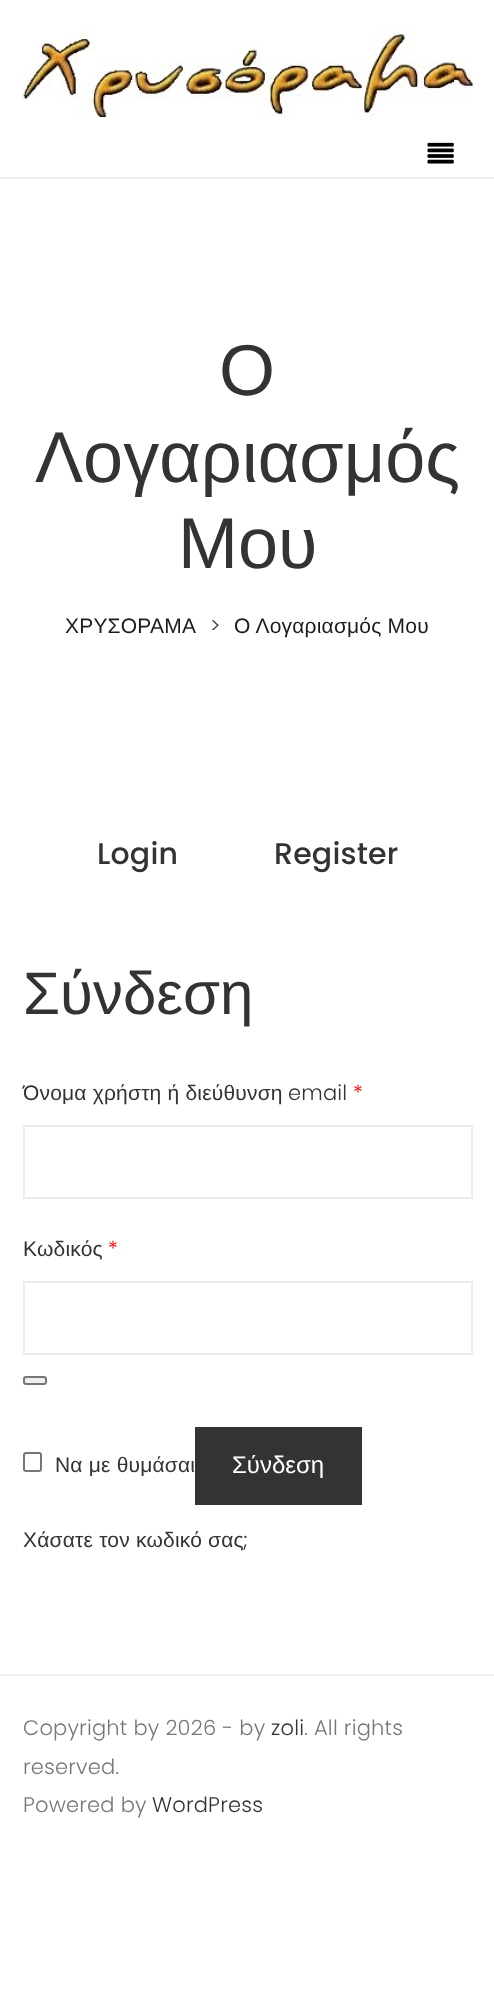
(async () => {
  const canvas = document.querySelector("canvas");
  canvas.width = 494;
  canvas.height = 1995;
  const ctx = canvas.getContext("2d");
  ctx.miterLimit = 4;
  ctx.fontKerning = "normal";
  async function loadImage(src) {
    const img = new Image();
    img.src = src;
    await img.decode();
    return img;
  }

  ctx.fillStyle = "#ffffff";
  ctx.fillRect(0, 0, 494, 1995);
  ctx.fillStyle = "#eeeeee";
  ctx.fillRect(0, 177, 494, 2);
  ctx.drawImage(await loadImage("img/1.png"), 22, 24, 451, 93);
  ctx.drawImage(await loadImage("img/2.png"), 427, 142, 27, 22);
  ctx.strokeStyle = "#ebebeb";
  ctx.lineWidth = 2;
  ctx.strokeRect(24, 1126, 448, 72);
  ctx.strokeRect(24, 1282, 448, 72);
  ctx.fillStyle = "#efefef";
  ctx.beginPath();
  ctx.roundRect(24, 1377, 22, 7, 2);
  ctx.fill();
  ctx.strokeStyle = "#767676";
  ctx.stroke();
  ctx.beginPath();
  ctx.roundRect(24, 1453, 17, 18, 2);
  ctx.stroke();
  ctx.fillStyle = "#333333";
  ctx.fillRect(195, 1427, 167, 78);
  ctx.fillStyle = "#eeeeee";
  ctx.fillRect(0, 1674, 494, 2);
  ctx.font = "72px Liberation Sans";
  ctx.fillStyle = "#333333";
  for (const [text, x, y] of [
    ["Ο", 219, 395],
    ["Λογαριασμός", 35, 482],
    ["Μου", 178, 568],
  ]) {
    ctx.fillText(text, x, y);
  }
  ctx.letterSpacing = "0.2px";
  ctx.font = "21px Liberation Sans";
  ctx.fillStyle = "#1d1d1d";
  ctx.fillText("ΧΡΥΣΟΡΑΜΑ", 65, 633);
  ctx.font = "300 21px Poppins";
  ctx.fillStyle = "#333333";
  ctx.fillText(">", 210, 633);
  ctx.font = "21px Liberation Sans";
  ctx.fillStyle = "#1d1d1d";
  ctx.fillText("Ο Λογαριασμός Μου", 234, 633);
  ctx.font = "500 30px Poppins";
  ctx.fillStyle = "#333333";
  ctx.fillText("Login", 97, 864);
  ctx.fillText("Register", 274, 864);
  ctx.letterSpacing = "0px";
  ctx.font = "60px Liberation Sans";
  ctx.fillText("Σύνδεση", 23, 1014);
  ctx.letterSpacing = "0.2px";
  ctx.font = "21px Liberation Sans";
  ctx.fillText("Όνομα χρήστη ή διεύθυνση", 23, 1100);
  ctx.font = "300 21px Poppins";
  ctx.fillText("email", 288, 1100);
  ctx.fillStyle = "#ff0000";
  ctx.fillText("*", 353, 1100);
  ctx.font = "21px Liberation Sans";
  ctx.fillStyle = "#333333";
  ctx.fillText("Κωδικός", 23, 1256);
  ctx.font = "300 21px Poppins";
  ctx.fillStyle = "#ff0000";
  ctx.fillText("*", 108, 1256);
  ctx.font = "21px Liberation Sans";
  ctx.fillStyle = "#333333";
  ctx.fillText("Να με θυμάσαι", 55, 1472);
  ctx.letterSpacing = "0px";
  ctx.font = "24px Liberation Sans";
  ctx.fillStyle = "#ffffff";
  ctx.fillText("Σύνδεση", 232, 1473);
  ctx.letterSpacing = "0.2px";
  ctx.font = "21px Liberation Sans";
  ctx.fillStyle = "#333333";
  ctx.fillText("Χάσατε τον κωδικό σας", 23, 1547);
  ctx.font = "300 21px Poppins";
  ctx.fillText(";", 243, 1547);
  ctx.fillStyle = "#777777";
  ctx.fillText("Copyright by 2026 - by", 23, 1735);
  ctx.fillStyle = "#333333";
  ctx.fillText("zoli", 271, 1735);
  ctx.fillStyle = "#777777";
  for (const [text, x, y] of [
    [". All rights", 304, 1735],
    ["reserved.", 23, 1774],
    ["Powered by", 23, 1812],
  ]) {
    ctx.fillText(text, x, y);
  }
  ctx.fillStyle = "#333333";
  ctx.fillText("WordPress", 152, 1812);
})();
